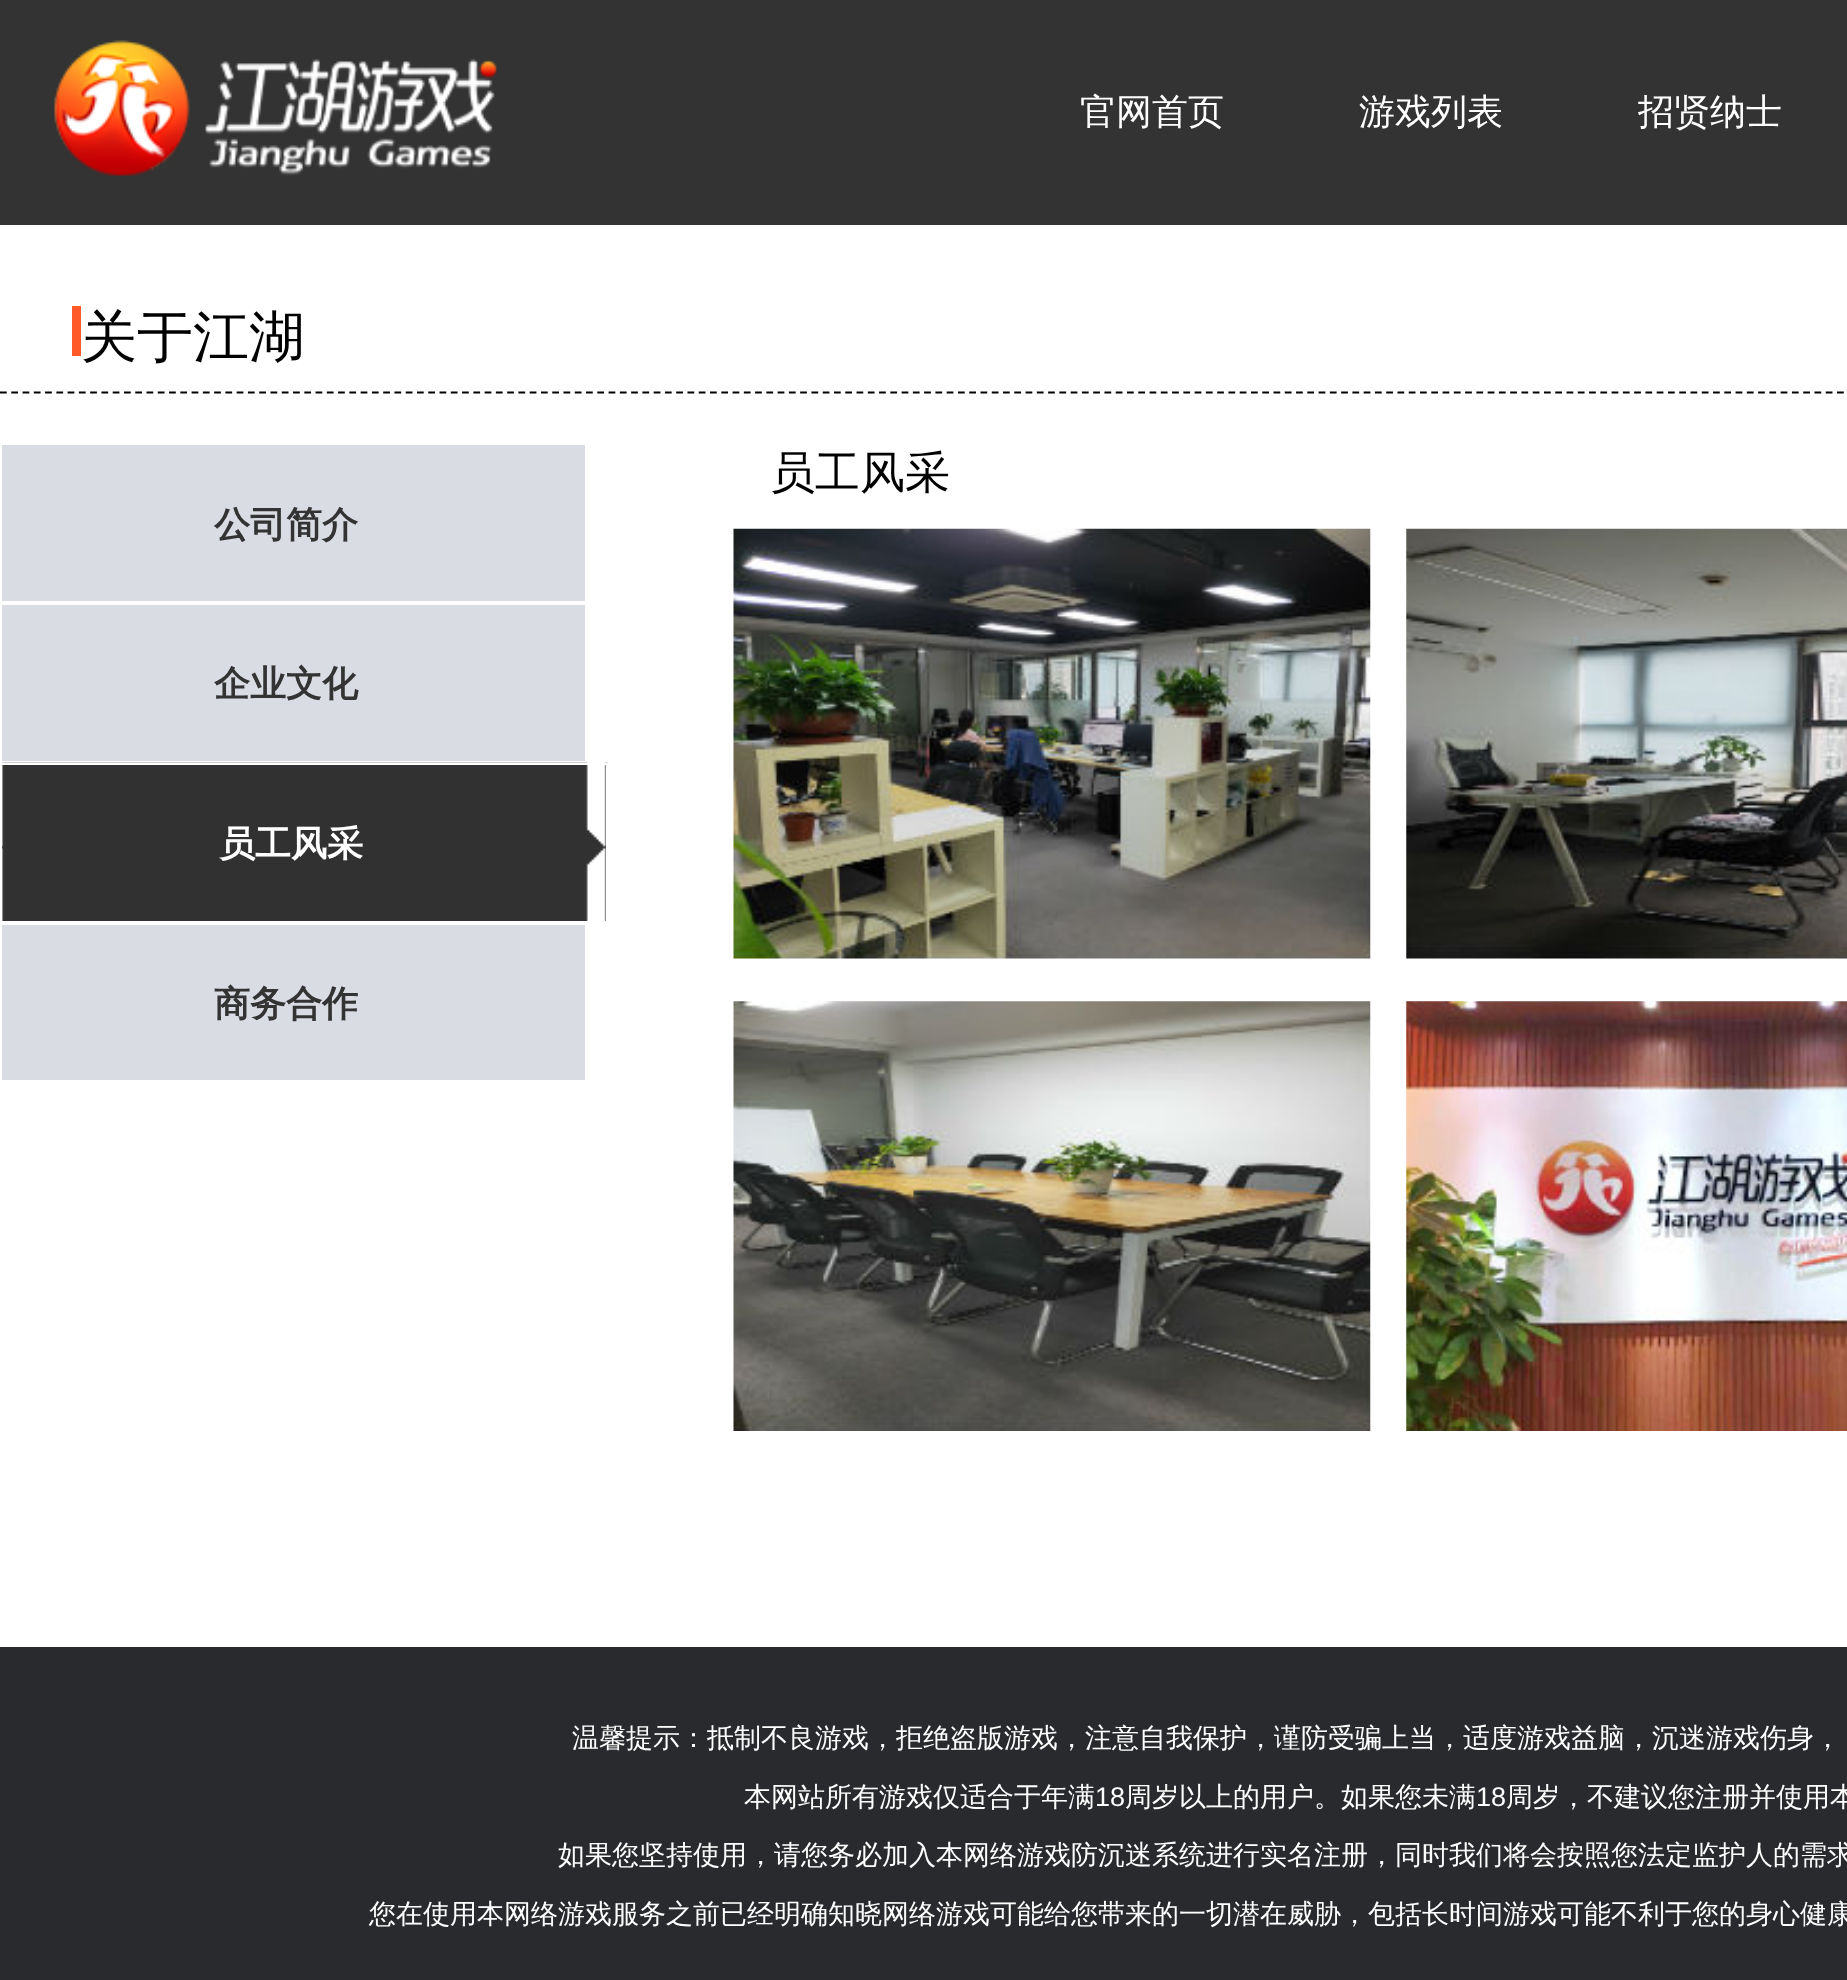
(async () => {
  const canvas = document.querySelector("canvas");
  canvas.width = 1847;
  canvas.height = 1980;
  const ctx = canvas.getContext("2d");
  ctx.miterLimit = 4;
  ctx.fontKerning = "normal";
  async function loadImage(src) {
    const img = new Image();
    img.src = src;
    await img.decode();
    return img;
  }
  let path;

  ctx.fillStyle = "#ffffff";
  ctx.fillRect(0, 0, 1847, 1980);
  ctx.fillStyle = "#333333";
  ctx.fillRect(0, 0, 1847, 225);
  ctx.drawImage(await loadImage("img/1.png"), 54, 40, 443, 136);
  path = new Path2D("M0 392.5H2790");
  ctx.strokeStyle = "#000000";
  ctx.lineWidth = 2.2;
  ctx.setLineDash([6.75, 4.52]);
  ctx.stroke(path);
  ctx.fillStyle = "#ff5a27";
  ctx.fillRect(72, 306, 9, 50);
  ctx.drawImage(await loadImage("img/2.png"), 733, 528, 638, 431);
  ctx.drawImage(await loadImage("img/3.png"), 1406, 528, 441, 431);
  ctx.drawImage(await loadImage("img/4.png"), 733, 1001, 638, 430);
  ctx.drawImage(await loadImage("img/5.png"), 1406, 1001, 441, 430);
  ctx.fillStyle = "#dadce3";
  ctx.fillRect(2, 445, 583, 156);
  ctx.fillRect(2, 605, 583, 156);
  ctx.drawImage(await loadImage("img/6.png"), 1, 762, 607, 159);
  ctx.strokeStyle = "#ffffff";
  ctx.lineWidth = 2;
  ctx.setLineDash([]);
  ctx.strokeRect(1, 764, 606, 158);
  ctx.fillRect(2, 925, 583, 155);
  ctx.fillStyle = "#282a2d";
  ctx.fillRect(0, 1647, 1847, 333);
  ctx.font = "500 36px WenQuanYi Zen Hei";
  ctx.fillStyle = "#ffffff";
  for (const [text, x, y] of [
    ["官网首页", 1080, 124],
    ["游戏列表", 1359, 124],
    ["招贤纳士", 1638, 124],
  ]) {
    ctx.fillText(text, x, y);
  }
  ctx.font = "500 56px WenQuanYi Zen Hei";
  ctx.fillStyle = "#000000";
  ctx.fillText("关于江湖", 81, 356);
  ctx.font = "500 45px WenQuanYi Zen Hei";
  ctx.fillText("员工风采", 770, 488);
  ctx.font = "bold 36px WenQuanYi Zen Hei";
  ctx.fillStyle = "#333333";
  ctx.fillText("公司简介", 214, 537);
  ctx.fillText("企业文化", 214, 696);
  ctx.fillStyle = "#ffffff";
  ctx.fillText("员工风采", 219, 856);
  ctx.fillStyle = "#333333";
  ctx.fillText("商务合作", 214, 1016);
  ctx.font = "500 27px WenQuanYi Zen Hei";
  ctx.fillStyle = "#ffffff";
  ctx.fillText("温馨提示：抵制不良游戏，拒绝盗版游戏，注意自我保护，谨防受骗上当，适度游戏益脑，沉迷游戏伤身，", 572, 1747);
  ctx.fillText("本网站所有游戏仅适合于年满", 744, 1806);
  ctx.font = "27px Liberation Sans";
  ctx.fillText("18", 1095, 1806);
  ctx.font = "500 27px WenQuanYi Zen Hei";
  ctx.fillText("周岁以上的用户。如果您未满", 1125, 1806);
  ctx.font = "27px Liberation Sans";
  ctx.fillText("18", 1476, 1806);
  ctx.font = "500 27px WenQuanYi Zen Hei";
  for (const [text, x, y] of [
    ["周岁，不建议您注册并使用本", 1506, 1806],
    ["如果您坚持使用，请您务必加入本网络游戏防沉迷系统进行实名注册，同时我们将会按照您法定监护人的需求", 558, 1864],
    ["您在使用本网络游戏服务之前已经明确知晓网络游戏可能给您带来的一切潜在威胁，包括长时间游戏可能不利于您的身心健康", 369, 1923],
  ]) {
    ctx.fillText(text, x, y);
  }
})();
